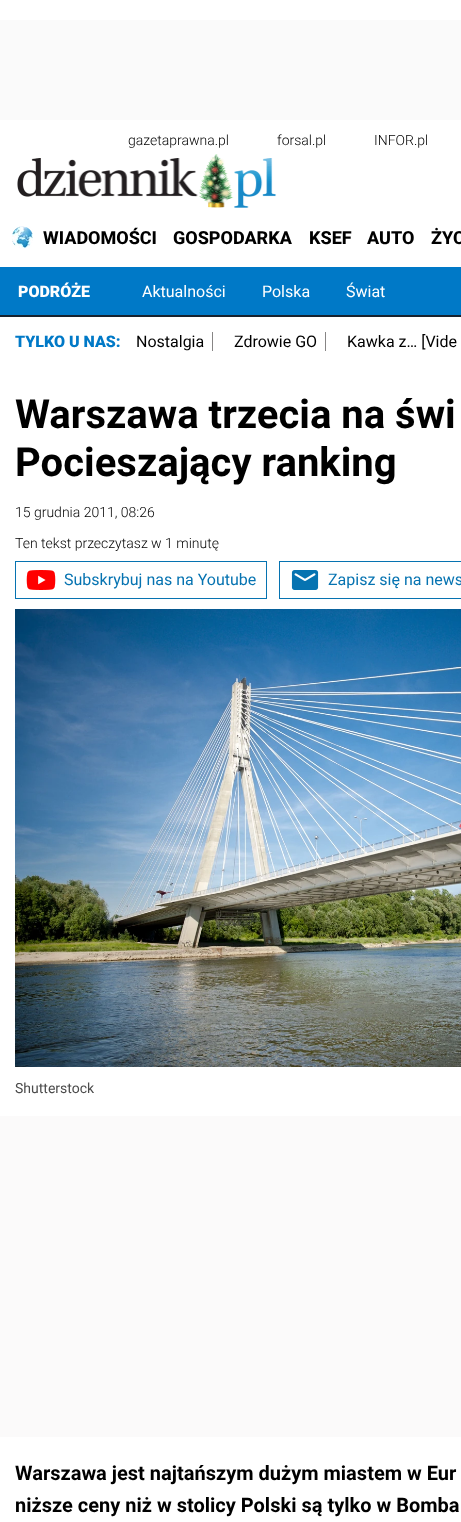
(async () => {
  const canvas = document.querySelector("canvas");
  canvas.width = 461;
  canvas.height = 1522;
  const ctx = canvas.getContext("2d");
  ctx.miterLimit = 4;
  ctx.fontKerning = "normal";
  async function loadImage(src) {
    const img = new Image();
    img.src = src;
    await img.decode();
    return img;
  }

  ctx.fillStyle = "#ffffff";
  ctx.fillRect(0, 0, 461, 1522);
  ctx.fillStyle = "#fafafa";
  ctx.fillRect(0, 20, 461, 100);
  ctx.drawImage(await loadImage("img/1.png"), 17, 154, 260, 54);
  ctx.drawImage(await loadImage("img/2.png"), 12, 226, 21, 23);
  for (const [x, y, w, h, color] of [
    [0, 267, 461, 48, "#0079c7"],
    [0, 315, 461, 2, "#16222f"],
    [212, 332, 1, 19, "#878585"],
    [325, 332, 1, 19, "#878585"],
  ]) {
    ctx.fillStyle = color;
    ctx.fillRect(x, y, w, h);
  }
  ctx.strokeStyle = "#0673b1";
  ctx.strokeRect(15.5, 561.5, 251, 37);
  ctx.drawImage(await loadImage("img/3.png"), 26, 570, 30, 20);
  ctx.strokeRect(279.5, 561.5, 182, 37);
  ctx.drawImage(await loadImage("img/4.png"), 291, 570, 28, 20);
  ctx.drawImage(await loadImage("img/5.png"), 15, 609, 446, 458);
  ctx.fillStyle = "#fbfafa";
  ctx.fillRect(0, 1116, 461, 321);
  ctx.font = "300 14px Roboto";
  ctx.fillStyle = "#000000";
  for (const [text, x, y] of [
    ["gazetaprawna.pl", 128, 145],
    ["forsal.pl", 277, 145],
    ["INFOR.pl", 374, 145],
  ]) {
    ctx.fillText(text, x, y);
  }
  ctx.font = "800 18px Roboto";
  for (const [text, x, y] of [
    ["WIADOMOŚCI", 43, 244],
    ["GOSPODARKA", 173, 244],
    ["KSEF", 309, 244],
    ["AUTO", 367, 244],
    ["ŻYC", 431, 244],
  ]) {
    ctx.fillText(text, x, y);
  }
  ctx.font = "900 16px Roboto";
  ctx.fillStyle = "#ffffff";
  ctx.fillText("PODRÓŻE", 18, 297);
  ctx.font = "16px Roboto";
  for (const [text, x, y] of [
    ["Aktualności", 142, 297],
    ["Polska", 262, 297],
    ["Świat", 346, 297],
  ]) {
    ctx.fillText(text, x, y);
  }
  ctx.font = "900 16px Roboto";
  ctx.fillStyle = "#0079c7";
  ctx.fillText("TYLKO U NAS:", 15, 347);
  ctx.font = "16px Roboto";
  ctx.fillStyle = "#000000";
  for (const [text, x, y] of [
    ["Nostalgia", 136, 347],
    ["Zdrowie GO", 234, 347],
    ["Kawka z… [Vide", 347, 347],
  ]) {
    ctx.fillText(text, x, y);
  }
  ctx.font = "bold 40px Roboto";
  ctx.fillText("Warszawa trzecia na świ", 15, 428);
  ctx.fillText("Pocieszający ranking", 15, 476);
  ctx.font = "300 14px Roboto";
  ctx.fillText("15 grudnia 2011, 08:26", 15, 517);
  ctx.fillText("Ten tekst przeczytasz w 1 minutę", 15, 548);
  ctx.font = "16px Roboto";
  ctx.fillStyle = "#0673b1";
  ctx.fillText("Subskrybuj nas na Youtube", 64, 585);
  ctx.fillText("Zapisz się na news", 328, 585);
  ctx.font = "14px Roboto";
  ctx.fillStyle = "#4b4b4b";
  ctx.fillText("Shutterstock", 15, 1093);
  ctx.font = "bold 20px Roboto";
  ctx.fillStyle = "#000000";
  ctx.fillText("Warszawa jest najtańszym dużym miastem w Eur", 15, 1480);
  ctx.fillText("niższe ceny niż w stolicy Polski są tylko w Bomba", 15, 1512);
})();
